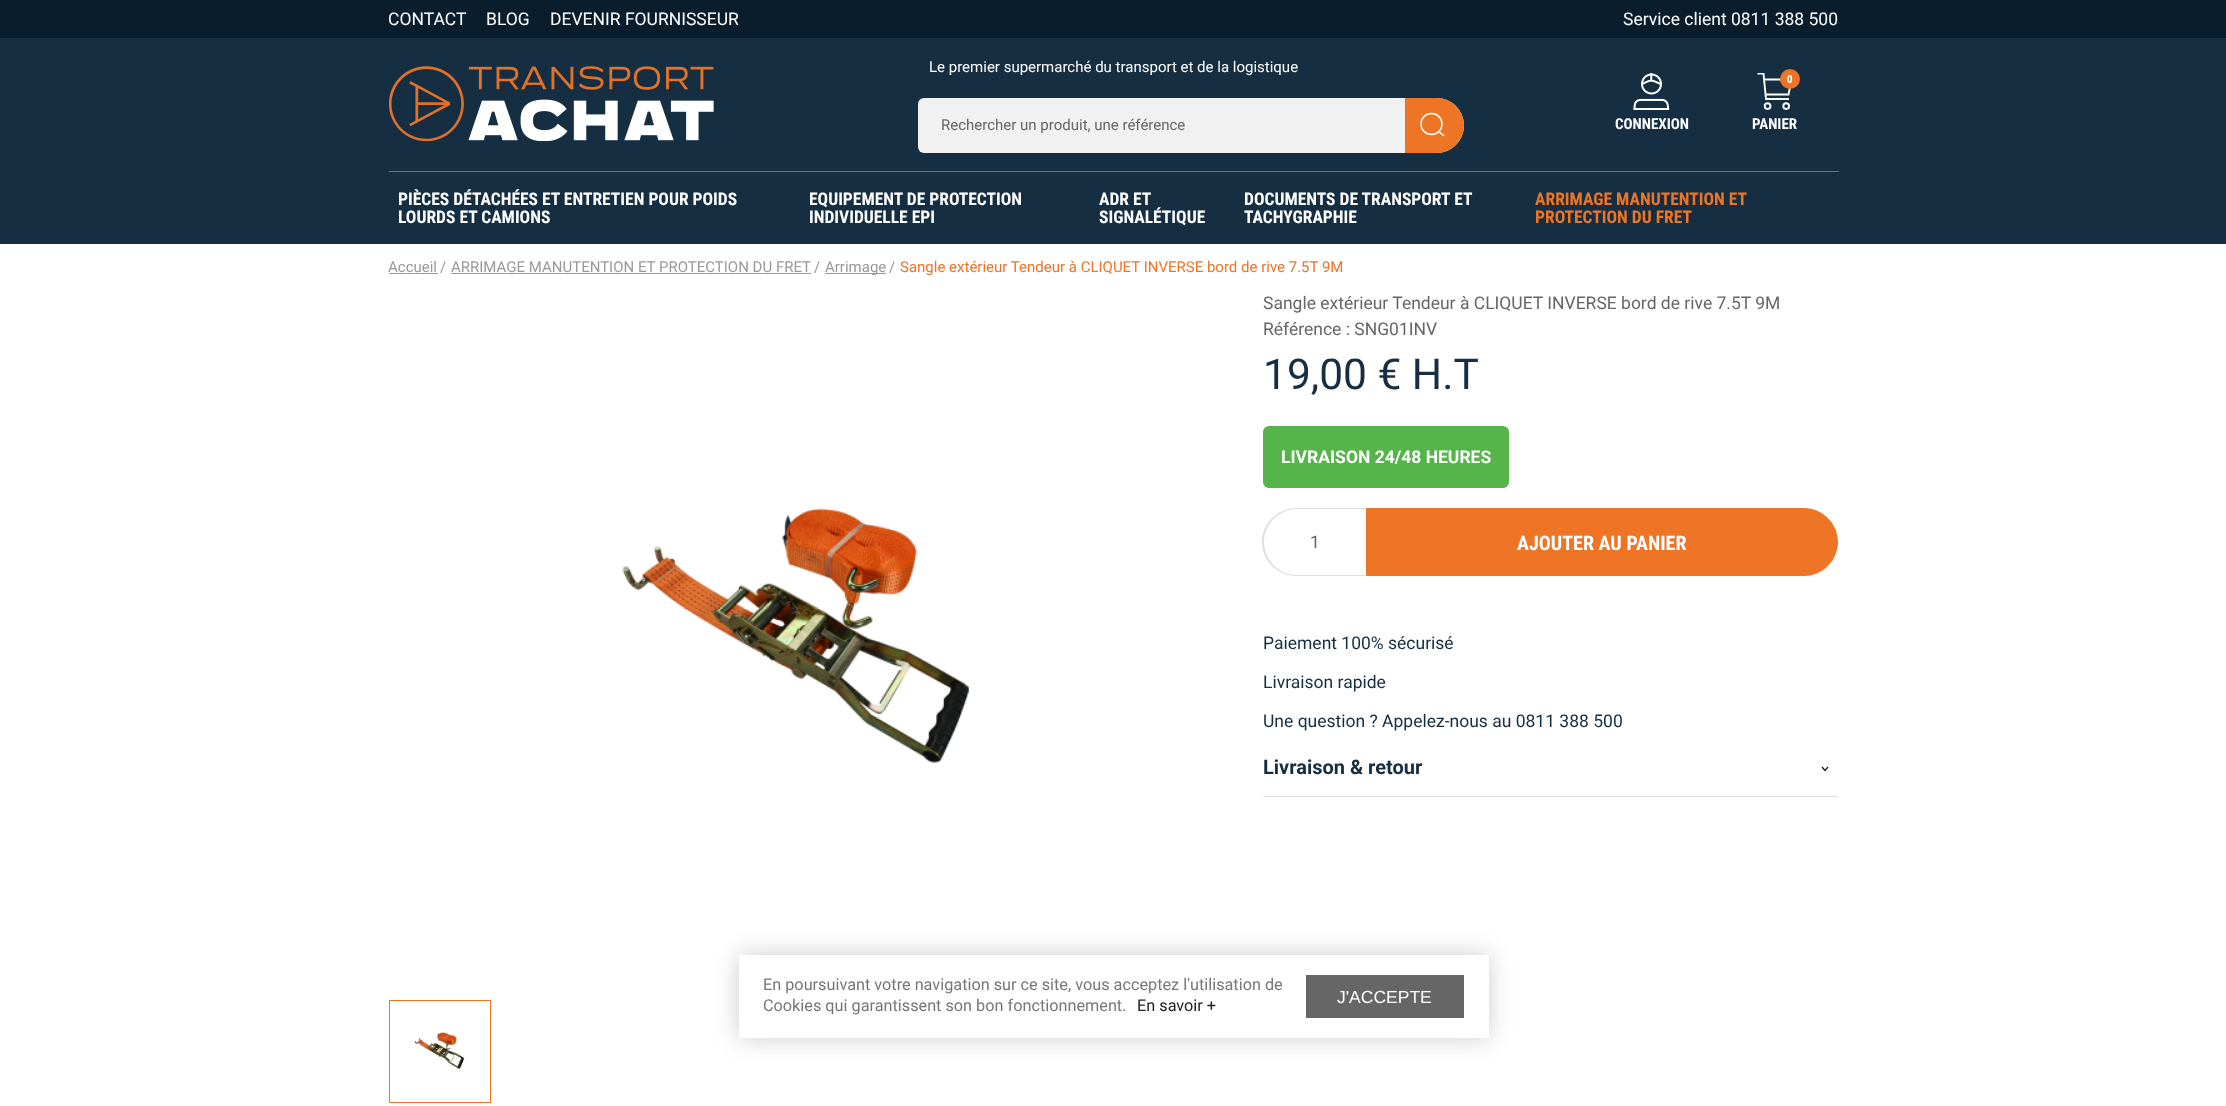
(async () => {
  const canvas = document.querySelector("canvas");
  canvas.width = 2226;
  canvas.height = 1106;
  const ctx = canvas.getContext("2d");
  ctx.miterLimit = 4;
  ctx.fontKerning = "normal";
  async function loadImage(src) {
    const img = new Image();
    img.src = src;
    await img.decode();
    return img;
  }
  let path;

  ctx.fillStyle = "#ffffff";
  ctx.fillRect(0, 0, 2226, 1106);
  ctx.fillStyle = "#0a1d2c";
  ctx.fillRect(0, 0, 2226, 38);
  ctx.fillStyle = "#152e42";
  ctx.fillRect(0, 38, 2226, 206);
  ctx.drawImage(await loadImage("img/1.png"), 389, 66, 325, 75);
  ctx.fillStyle = "#f1f1f1";
  ctx.beginPath();
  ctx.roundRect(918, 98, 546, 55, [6, 27.5, 27.5, 6]);
  ctx.fill();
  ctx.fillStyle = "#ee7426";
  ctx.beginPath();
  ctx.roundRect(1405, 98, 59, 55, [0, 27.5, 27.5, 0]);
  ctx.fill();
  ctx.beginPath();
  ctx.arc(1431.5, 124, 10.5, 0, Math.PI * 2);
  ctx.strokeStyle = "#ffffff";
  ctx.lineWidth = 1.5;
  ctx.stroke();
  path = new Path2D("M1439 131.5L1444 136");
  ctx.stroke(path);
  ctx.drawImage(await loadImage("img/2.png"), 1633, 73, 37, 37);
  path = new Path2D("M1764.5 79.5H1791.5L1788.5 94.5H1765.5");
  ctx.lineWidth = 1.9;
  ctx.stroke(path);
  ctx.save();
  ctx.beginPath();
  ctx.rect(1756, 73, 38, 37);
  ctx.clip();
  path = new Path2D("M1757.5 73.5H1763.5L1766 99H1789");
  ctx.stroke(path);
  ctx.restore();
  ctx.beginPath();
  ctx.arc(1790, 79, 10, 0, Math.PI * 2);
  ctx.fill();
  ctx.beginPath();
  ctx.arc(1767.6, 106.1, 2.9, 0, Math.PI * 2);
  ctx.stroke();
  ctx.beginPath();
  ctx.arc(1786.2, 106.1, 2.9, 0, Math.PI * 2);
  ctx.stroke();
  for (const [x, y, w, h, color] of [
    [389, 171, 1450, 1, "#707070"],
    [389, 273, 49, 1, "#999999"],
    [451, 273, 360, 1, "#999999"],
    [825, 273, 61, 1, "#999999"],
  ]) {
    ctx.fillStyle = color;
    ctx.fillRect(x, y, w, h);
  }
  ctx.drawImage(await loadImage("img/3.png"), 622, 508, 348, 255);
  ctx.strokeStyle = "#ee7426";
  ctx.lineWidth = 1;
  ctx.strokeRect(389.5, 1000.5, 101, 102);
  ctx.drawImage(await loadImage("img/4.png"), 414, 1032, 51, 37);
  ctx.fillStyle = "#56b54a";
  ctx.beginPath();
  ctx.roundRect(1263, 426, 246, 62, 6);
  ctx.fill();
  ctx.fillStyle = "#dddddd";
  path = new Path2D("M1297 508H1366V576H1297C1278 576 1262 561 1262 542C1262 523 1278 508 1297 508ZM1297 509H1366V575H1297C1279 575 1264 560 1264 542C1264 524 1279 509 1297 509Z");
  ctx.fill(path, "evenodd");
  ctx.fillStyle = "#ee7426";
  ctx.beginPath();
  ctx.roundRect(1366.5, 508.5, 471, 67, [0, 33.5, 33.5, 0]);
  ctx.fill();
  ctx.stroke();
  ctx.fillStyle = "#dddddd";
  ctx.fillRect(1263, 796, 575, 1);
  path = new Path2D("M1822 767L1825 770.5L1828 767");
  ctx.strokeStyle = "#161215";
  ctx.lineWidth = 1.2;
  ctx.stroke(path);
  ctx.fillStyle = "rgba(0, 0, 0, 0.2)";
  ctx.filter = "blur(12.5px)";
  ctx.beginPath();
  ctx.rect(739, 955, 750, 83);
  ctx.fill();
  ctx.filter = "none";
  ctx.fillStyle = "#ffffff";
  ctx.fillRect(739, 955, 750, 83);
  ctx.fillStyle = "#666666";
  ctx.fillRect(1306, 975, 158, 43);
  ctx.font = "17.5px Roboto";
  ctx.fillStyle = "#ffffff";
  for (const [text, x, y] of [
    ["CONTACT", 388, 25],
    ["BLOG", 486, 25],
    ["DEVENIR FOURNISSEUR", 550, 25],
    ["Service client 0811 388 500", 1623, 25],
  ]) {
    ctx.fillText(text, x, y);
  }
  ctx.font = "15px Roboto";
  ctx.fillText("Le premier supermarché du transport et de la logistique", 929, 72);
  ctx.fillStyle = "#666666";
  ctx.fillText("Rechercher un produit, une référence", 941, 130);
  ctx.font = "bold 15px Roboto Condensed";
  ctx.fillStyle = "#ffffff";
  ctx.fillText("CONNEXION", 1615, 129);
  ctx.font = "bold 11px Roboto Condensed";
  ctx.fillText("0", 1787, 83);
  ctx.font = "bold 15px Roboto Condensed";
  ctx.fillText("PANIER", 1752, 129);
  ctx.font = "bold 17.5px Roboto Condensed";
  for (const [text, x, y] of [
    ["PIÈCES DÉTACHÉES ET ENTRETIEN POUR POIDS", 398, 205],
    ["LOURDS ET CAMIONS", 398, 223],
    ["EQUIPEMENT DE PROTECTION", 809, 205],
    ["INDIVIDUELLE EPI", 809, 223],
    ["ADR ET", 1099, 205],
    ["SIGNALÉTIQUE", 1099, 223],
    ["DOCUMENTS DE TRANSPORT ET", 1244, 205],
    ["TACHYGRAPHIE", 1244, 223],
  ]) {
    ctx.fillText(text, x, y);
  }
  ctx.fillStyle = "#ee7426";
  ctx.fillText("ARRIMAGE MANUTENTION ET", 1535, 205);
  ctx.fillText("PROTECTION DU FRET", 1535, 223);
  ctx.font = "15px Roboto";
  ctx.fillStyle = "#999999";
  for (const [text, x, y] of [
    ["Accueil", 388, 272],
    ["/", 440, 272],
    ["ARRIMAGE MANUTENTION ET PROTECTION DU FRET", 451, 272],
    ["/", 814, 272],
    ["Arrimage", 825, 272],
    ["/", 889, 272],
  ]) {
    ctx.fillText(text, x, y);
  }
  ctx.fillStyle = "#ee7426";
  ctx.fillText("Sangle extérieur Tendeur à CLIQUET INVERSE bord de rive 7.5T 9M", 900, 272);
  ctx.font = "17.5px Roboto";
  ctx.fillStyle = "#666666";
  ctx.fillText("Sangle extérieur Tendeur à CLIQUET INVERSE bord de rive 7.5T 9M", 1263, 309);
  ctx.fillText("Référence : SNG01INV", 1263, 335);
  ctx.font = "42.5px Roboto";
  ctx.fillStyle = "#152e42";
  ctx.fillText("19,00 € H.T", 1263, 389);
  ctx.font = "bold 17.5px Roboto";
  ctx.fillStyle = "#ffffff";
  ctx.fillText("LIVRAISON 24/48 HEURES", 1281, 463);
  ctx.font = "17.5px Roboto";
  ctx.fillStyle = "#666666";
  ctx.fillText("1", 1310, 548);
  ctx.font = "bold 20px Roboto Condensed";
  ctx.fillStyle = "#ffffff";
  ctx.fillText("AJOUTER AU PANIER", 1517, 550);
  ctx.font = "17.5px Roboto";
  ctx.fillStyle = "#152e42";
  for (const [text, x, y] of [
    ["Paiement 100% sécurisé", 1263, 649],
    ["Livraison rapide", 1263, 688],
    ["Une question ? Appelez-nous au 0811 388 500", 1263, 727],
  ]) {
    ctx.fillText(text, x, y);
  }
  ctx.font = "bold 20px Roboto";
  ctx.fillText("Livraison & retour", 1263, 774);
  ctx.font = "16.25px Roboto";
  ctx.fillStyle = "#777777";
  ctx.fillText("En poursuivant votre navigation sur ce site, vous acceptez l'utilisation de", 763, 990);
  ctx.fillText("Cookies qui garantissent son bon fonctionnement.", 763, 1011);
  ctx.fillStyle = "#222222";
  ctx.fillText("En savoir +", 1137, 1011);
  ctx.font = "17.5px Liberation Sans";
  ctx.fillStyle = "#ffffff";
  ctx.fillText("J'ACCEPTE", 1337, 1003);
})();
